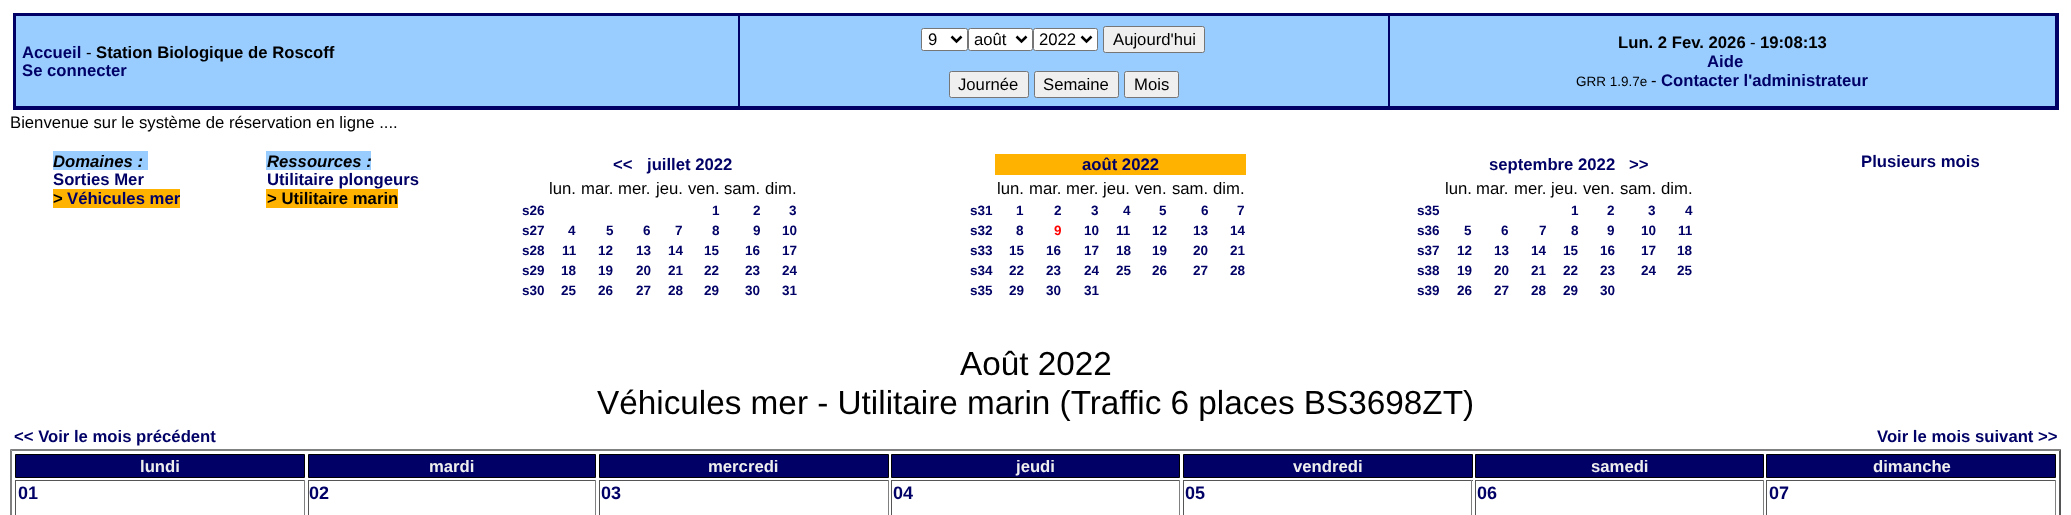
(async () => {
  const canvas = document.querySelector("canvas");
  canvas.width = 2071;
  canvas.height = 515;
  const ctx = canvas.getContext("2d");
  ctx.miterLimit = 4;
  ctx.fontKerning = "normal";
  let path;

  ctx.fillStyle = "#ffffff";
  ctx.fillRect(0, 0, 2071, 515);
  for (const [x, y, w, h, color] of [
    [13, 13, 2046, 97, "#000066"],
    [16, 16, 722, 90, "#99ccff"],
    [740, 16, 648, 90, "#99ccff"],
  ]) {
    ctx.fillStyle = color;
    ctx.fillRect(x, y, w, h);
  }
  ctx.fillStyle = "#ffffff";
  ctx.beginPath();
  ctx.roundRect(921.5, 28.5, 46, 22, 2);
  ctx.fill();
  ctx.strokeStyle = "#767676";
  ctx.stroke();
  path = new Path2D("M951.5 36.5L956.5 41.5L961.5 36.5");
  ctx.strokeStyle = "#000000";
  ctx.lineWidth = 2.5;
  ctx.stroke(path);
  ctx.beginPath();
  ctx.roundRect(968.5, 28.5, 64, 22, 2);
  ctx.fill();
  ctx.strokeStyle = "#767676";
  ctx.lineWidth = 1;
  ctx.stroke();
  path = new Path2D("M1016.5 36.5L1021.5 41.5L1026.5 36.5");
  ctx.strokeStyle = "#000000";
  ctx.lineWidth = 2.5;
  ctx.stroke(path);
  ctx.beginPath();
  ctx.roundRect(1033.5, 28.5, 64, 22, 2);
  ctx.fill();
  ctx.strokeStyle = "#767676";
  ctx.lineWidth = 1;
  ctx.stroke();
  path = new Path2D("M1081.5 36.5L1086.5 41.5L1091.5 36.5");
  ctx.strokeStyle = "#000000";
  ctx.lineWidth = 2.5;
  ctx.stroke(path);
  ctx.fillStyle = "#efefef";
  ctx.beginPath();
  ctx.roundRect(1103.5, 26.5, 101, 26, 2);
  ctx.fill();
  ctx.strokeStyle = "#767676";
  ctx.lineWidth = 1;
  ctx.stroke();
  ctx.beginPath();
  ctx.roundRect(949.5, 71.5, 79, 26, 2);
  ctx.fill();
  ctx.stroke();
  ctx.beginPath();
  ctx.roundRect(1034.5, 71.5, 84, 26, 2);
  ctx.fill();
  ctx.stroke();
  ctx.beginPath();
  ctx.roundRect(1124.5, 71.5, 54, 26, 2);
  ctx.fill();
  ctx.stroke();
  for (const [x, y, w, h, color] of [
    [1390, 16, 665, 90, "#99ccff"],
    [53, 151, 95, 19, "#99ccff"],
    [53, 189, 127, 19, "#ffb200"],
    [266, 151, 105, 19, "#99ccff"],
    [266, 189, 132, 19, "#ffb200"],
    [995, 154, 251, 21, "#ffb200"],
  ]) {
    ctx.fillStyle = color;
    ctx.fillRect(x, y, w, h);
  }
  ctx.fillStyle = "#808080";
  path = new Path2D("M10 449H2061L2059 451H12Z");
  ctx.fill(path);
  ctx.fillStyle = "#555555";
  path = new Path2D("M2061 449V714L2059 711V451Z");
  ctx.fill(path);
  ctx.fillStyle = "#808080";
  path = new Path2D("M10 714V449L12 451V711Z");
  ctx.fill(path);
  ctx.fillStyle = "#000066";
  ctx.beginPath();
  ctx.rect(15.5, 454.5, 289, 23);
  ctx.fill();
  ctx.strokeStyle = "#000000";
  ctx.stroke();
  ctx.beginPath();
  ctx.rect(308.5, 454.5, 287, 23);
  ctx.fill();
  ctx.stroke();
  ctx.beginPath();
  ctx.rect(599.5, 454.5, 289, 23);
  ctx.fill();
  ctx.stroke();
  ctx.beginPath();
  ctx.rect(891.5, 454.5, 288, 23);
  ctx.fill();
  ctx.stroke();
  ctx.beginPath();
  ctx.rect(1183.5, 454.5, 289, 23);
  ctx.fill();
  ctx.stroke();
  ctx.beginPath();
  ctx.rect(1475.5, 454.5, 288, 23);
  ctx.fill();
  ctx.stroke();
  ctx.beginPath();
  ctx.rect(1766.5, 454.5, 289, 23);
  ctx.fill();
  ctx.stroke();
  for (const [x, y, w, h, color] of [
    [15, 480, 290, 1, "#555555"],
    [304, 480, 1, 35, "#808080"],
    [15, 480, 1, 35, "#555555"],
    [308, 480, 288, 1, "#555555"],
    [595, 480, 1, 35, "#808080"],
    [308, 480, 1, 35, "#555555"],
    [599, 480, 290, 1, "#555555"],
    [888, 480, 1, 35, "#808080"],
    [599, 480, 1, 35, "#555555"],
    [891, 480, 289, 1, "#555555"],
    [1179, 480, 1, 35, "#808080"],
    [891, 480, 1, 35, "#555555"],
    [1183, 480, 290, 1, "#555555"],
    [1471, 480, 1, 35, "#808080"],
    [1183, 480, 1, 35, "#555555"],
    [1475, 480, 289, 1, "#555555"],
    [1763, 480, 1, 35, "#808080"],
    [1475, 480, 1, 35, "#555555"],
    [1766, 480, 290, 1, "#555555"],
    [2055, 480, 1, 35, "#808080"],
    [1766, 480, 1, 35, "#555555"],
  ]) {
    ctx.fillStyle = color;
    ctx.fillRect(x, y, w, h);
  }
  ctx.font = "bold 16.7px Liberation Sans";
  ctx.fillStyle = "#000066";
  ctx.fillText("Accueil", 22, 58);
  ctx.font = "16.7px Liberation Sans";
  ctx.fillStyle = "#000000";
  ctx.fillText("-", 86, 58);
  ctx.font = "bold 16.7px Liberation Sans";
  ctx.fillText("Station Biologique de Roscoff", 96, 58);
  ctx.fillStyle = "#000066";
  ctx.fillText("Se connecter", 22, 76);
  ctx.font = "16.7px Liberation Sans";
  ctx.fillStyle = "#000000";
  for (const [text, x, y] of [
    ["9", 928, 45],
    ["août", 974, 45],
    ["2022", 1039, 45],
    ["Aujourd'hui", 1113, 45],
    ["Journée", 958, 90],
    ["Semaine", 1043, 90],
    ["Mois", 1134, 90],
  ]) {
    ctx.fillText(text, x, y);
  }
  ctx.font = "bold 16.7px Liberation Sans";
  ctx.fillText("Lun. 2 Fev. 2026", 1618, 48);
  ctx.font = "16.7px Liberation Sans";
  ctx.fillText("-", 1750, 48);
  ctx.font = "bold 16.7px Liberation Sans";
  ctx.fillText("19:08:13", 1760, 48);
  ctx.fillStyle = "#000066";
  ctx.fillText("Aide", 1707, 67);
  ctx.font = "13.5px Liberation Sans";
  ctx.fillStyle = "#000000";
  ctx.fillText("GRR 1.9.7e", 1576, 86);
  ctx.font = "16.7px Liberation Sans";
  ctx.fillText("-", 1651, 86);
  ctx.font = "bold 16.7px Liberation Sans";
  ctx.fillStyle = "#000066";
  ctx.fillText("Contacter l'administrateur", 1661, 86);
  ctx.font = "16.7px Liberation Sans";
  ctx.fillStyle = "#000000";
  ctx.fillText("Bienvenue sur le système de réservation en ligne ....", 10, 128);
  ctx.font = "italic bold 16.7px Liberation Sans";
  ctx.fillText("Domaines :", 53, 167);
  ctx.font = "bold 16.7px Liberation Sans";
  ctx.fillStyle = "#000066";
  ctx.fillText("Sorties Mer", 53, 185);
  ctx.fillStyle = "#000000";
  ctx.fillText(">", 53, 204);
  ctx.fillStyle = "#000066";
  ctx.fillText("Véhicules mer", 67, 204);
  ctx.font = "italic bold 16.7px Liberation Sans";
  ctx.fillStyle = "#000000";
  ctx.fillText("Ressources :", 267, 167);
  ctx.font = "bold 16.7px Liberation Sans";
  ctx.fillStyle = "#000066";
  ctx.fillText("Utilitaire plongeurs", 267, 185);
  ctx.fillStyle = "#000000";
  ctx.fillText("> Utilitaire marin", 267, 204);
  ctx.fillStyle = "#000066";
  ctx.fillText("<<", 613, 170);
  ctx.fillText("juillet 2022", 647, 170);
  ctx.font = "16.7px Liberation Sans";
  ctx.fillStyle = "#000000";
  for (const [text, x, y] of [
    ["lun.", 549, 194],
    ["mar.", 581, 194],
    ["mer.", 618, 194],
    ["jeu.", 656, 194],
    ["ven.", 688, 194],
    ["sam.", 724, 194],
    ["dim.", 765, 194],
  ]) {
    ctx.fillText(text, x, y);
  }
  ctx.font = "bold 13.5px Liberation Sans";
  ctx.fillStyle = "#000066";
  for (const [text, x, y] of [
    ["s26", 522, 215],
    ["1", 712, 215],
    ["2", 753, 215],
    ["3", 789, 215],
    ["s27", 522, 235],
    ["4", 568, 235],
    ["5", 606, 235],
    ["6", 643, 235],
    ["7", 675, 235],
    ["8", 712, 235],
    ["9", 753, 235],
    ["10", 782, 235],
    ["s28", 522, 255],
    ["11", 562, 255],
    ["12", 598, 255],
    ["13", 636, 255],
    ["14", 668, 255],
    ["15", 704, 255],
    ["16", 745, 255],
    ["17", 782, 255],
    ["s29", 522, 275],
    ["18", 561, 275],
    ["19", 598, 275],
    ["20", 636, 275],
    ["21", 668, 275],
    ["22", 704, 275],
    ["23", 745, 275],
    ["24", 782, 275],
    ["s30", 522, 295],
    ["25", 561, 295],
    ["26", 598, 295],
    ["27", 636, 295],
    ["28", 668, 295],
    ["29", 704, 295],
    ["30", 745, 295],
    ["31", 782, 295],
  ]) {
    ctx.fillText(text, x, y);
  }
  ctx.font = "bold 16.7px Liberation Sans";
  ctx.fillText("août 2022", 1082, 170);
  ctx.font = "16.7px Liberation Sans";
  ctx.fillStyle = "#000000";
  for (const [text, x, y] of [
    ["lun.", 997, 194],
    ["mar.", 1029, 194],
    ["mer.", 1066, 194],
    ["jeu.", 1103, 194],
    ["ven.", 1135, 194],
    ["sam.", 1172, 194],
    ["dim.", 1213, 194],
  ]) {
    ctx.fillText(text, x, y);
  }
  ctx.font = "bold 13.5px Liberation Sans";
  ctx.fillStyle = "#000066";
  for (const [text, x, y] of [
    ["s31", 970, 215],
    ["1", 1016, 215],
    ["2", 1054, 215],
    ["3", 1091, 215],
    ["4", 1123, 215],
    ["5", 1159, 215],
    ["6", 1201, 215],
    ["7", 1237, 215],
    ["s32", 970, 235],
    ["8", 1016, 235],
  ]) {
    ctx.fillText(text, x, y);
  }
  ctx.fillStyle = "#ff0000";
  ctx.fillText("9", 1054, 235);
  ctx.fillStyle = "#000066";
  for (const [text, x, y] of [
    ["10", 1084, 235],
    ["11", 1116, 235],
    ["12", 1152, 235],
    ["13", 1193, 235],
    ["14", 1230, 235],
    ["s33", 970, 255],
    ["15", 1009, 255],
    ["16", 1046, 255],
    ["17", 1084, 255],
    ["18", 1116, 255],
    ["19", 1152, 255],
    ["20", 1193, 255],
    ["21", 1230, 255],
    ["s34", 970, 275],
    ["22", 1009, 275],
    ["23", 1046, 275],
    ["24", 1084, 275],
    ["25", 1116, 275],
    ["26", 1152, 275],
    ["27", 1193, 275],
    ["28", 1230, 275],
    ["s35", 970, 295],
    ["29", 1009, 295],
    ["30", 1046, 295],
    ["31", 1084, 295],
  ]) {
    ctx.fillText(text, x, y);
  }
  ctx.font = "bold 16.7px Liberation Sans";
  ctx.fillText("septembre 2022", 1489, 170);
  ctx.fillText(">>", 1629, 170);
  ctx.font = "16.7px Liberation Sans";
  ctx.fillStyle = "#000000";
  for (const [text, x, y] of [
    ["lun.", 1445, 194],
    ["mar.", 1476, 194],
    ["mer.", 1514, 194],
    ["jeu.", 1551, 194],
    ["ven.", 1583, 194],
    ["sam.", 1620, 194],
    ["dim.", 1661, 194],
  ]) {
    ctx.fillText(text, x, y);
  }
  ctx.font = "bold 13.5px Liberation Sans";
  ctx.fillStyle = "#000066";
  for (const [text, x, y] of [
    ["s35", 1417, 215],
    ["1", 1571, 215],
    ["2", 1607, 215],
    ["3", 1648, 215],
    ["4", 1685, 215],
    ["s36", 1417, 235],
    ["5", 1464, 235],
    ["6", 1501, 235],
    ["7", 1539, 235],
    ["8", 1571, 235],
    ["9", 1607, 235],
    ["10", 1641, 235],
    ["11", 1678, 235],
    ["s37", 1417, 255],
    ["12", 1457, 255],
    ["13", 1494, 255],
    ["14", 1531, 255],
    ["15", 1563, 255],
    ["16", 1600, 255],
    ["17", 1641, 255],
    ["18", 1677, 255],
    ["s38", 1417, 275],
    ["19", 1457, 275],
    ["20", 1494, 275],
    ["21", 1531, 275],
    ["22", 1563, 275],
    ["23", 1600, 275],
    ["24", 1641, 275],
    ["25", 1677, 275],
    ["s39", 1417, 295],
    ["26", 1457, 295],
    ["27", 1494, 295],
    ["28", 1531, 295],
    ["29", 1563, 295],
    ["30", 1600, 295],
  ]) {
    ctx.fillText(text, x, y);
  }
  ctx.font = "bold 16.7px Liberation Sans";
  ctx.fillText("Plusieurs mois", 1861, 167);
  ctx.font = "33.3px Liberation Sans";
  ctx.fillStyle = "#000000";
  ctx.fillText("Août 2022", 960, 375);
  ctx.fillText("Véhicules mer - Utilitaire marin (Traffic 6 places BS3698ZT)", 597, 414);
  ctx.font = "bold 16.7px Liberation Sans";
  ctx.fillStyle = "#000066";
  ctx.fillText("<< Voir le mois précédent", 14, 442);
  ctx.fillText("Voir le mois suivant >>", 1877, 442);
  ctx.fillStyle = "#eeeeee";
  for (const [text, x, y] of [
    ["lundi", 140, 472],
    ["mardi", 429, 472],
    ["mercredi", 708, 472],
    ["jeudi", 1016, 472],
    ["vendredi", 1293, 472],
    ["samedi", 1591, 472],
    ["dimanche", 1873, 472],
  ]) {
    ctx.fillText(text, x, y);
  }
  ctx.font = "bold 18px Liberation Sans";
  ctx.fillStyle = "#000066";
  for (const [text, x, y] of [
    ["01", 18, 499],
    ["02", 309, 499],
    ["03", 601, 499],
    ["04", 893, 499],
    ["05", 1185, 499],
    ["06", 1477, 499],
    ["07", 1769, 499],
  ]) {
    ctx.fillText(text, x, y);
  }
})();
